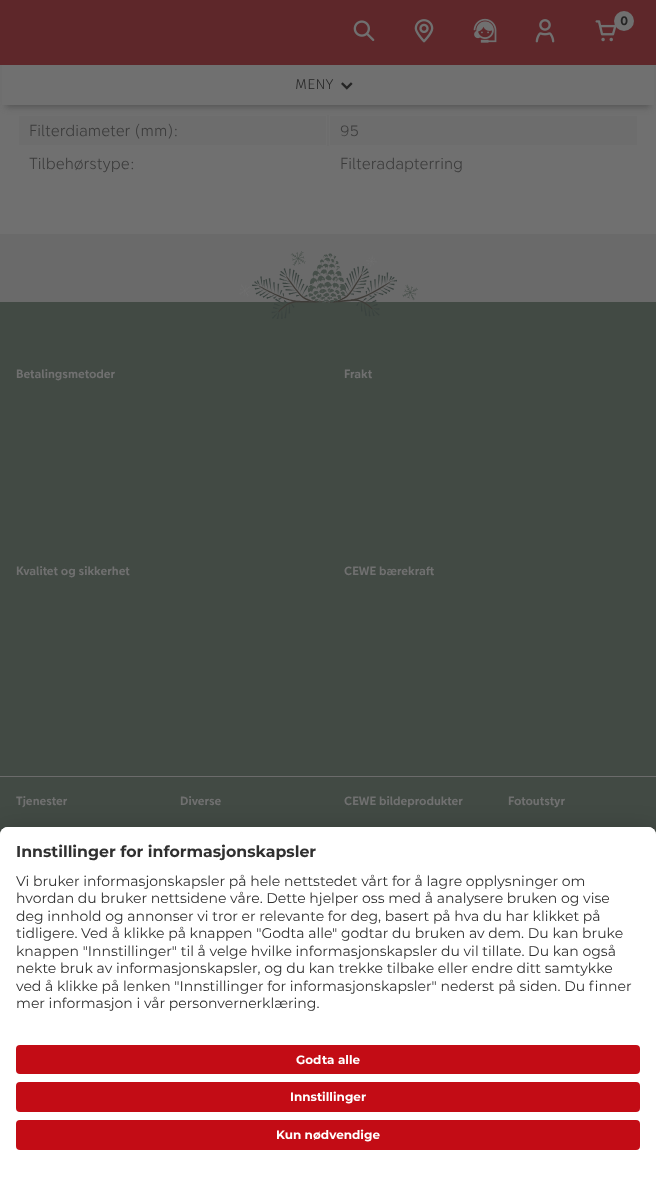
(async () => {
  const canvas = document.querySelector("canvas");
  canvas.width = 656;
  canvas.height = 1178;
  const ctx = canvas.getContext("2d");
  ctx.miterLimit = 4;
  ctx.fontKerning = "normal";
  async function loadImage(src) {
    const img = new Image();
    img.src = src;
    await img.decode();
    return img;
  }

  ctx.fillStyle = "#707070";
  ctx.fillRect(0, 0, 656, 1178);
  ctx.fillStyle = "#6d6d6d";
  ctx.fillRect(19, 115, 618, 31);
  ctx.strokeStyle = "#707070";
  ctx.strokeRect(18.5, 115.5, 308, 30);
  ctx.strokeRect(329.5, 115.5, 308, 30);
  ctx.fillStyle = "#545454";
  ctx.filter = "blur(3px)";
  ctx.beginPath();
  ctx.rect(6, 14, 644, 93);
  ctx.fill();
  ctx.filter = "none";
  ctx.fillStyle = "#5e272a";
  ctx.fillRect(0, 0, 656, 65);
  ctx.drawImage(await loadImage("img/1.png"), 353, 20, 22, 22);
  ctx.drawImage(await loadImage("img/2.png"), 414, 19, 20, 24);
  ctx.drawImage(await loadImage("img/3.png"), 473, 18, 24, 25);
  ctx.drawImage(await loadImage("img/4.png"), 535, 19, 20, 24);
  ctx.drawImage(await loadImage("img/5.png"), 595, 20, 22, 22);
  ctx.fillStyle = "#707070";
  ctx.beginPath();
  ctx.arc(624, 21, 10, 0, Math.PI * 2);
  ctx.fill();
  ctx.fillRect(2, 65, 652, 40);
  ctx.drawImage(await loadImage("img/6.png"), 341, 82, 12, 8);
  ctx.fillStyle = "#424a44";
  ctx.fillRect(0, 302, 656, 533);
  ctx.fillStyle = "#6a6a6a";
  ctx.fillRect(0, 234, 656, 68);
  ctx.drawImage(await loadImage("img/7.png"), 239, 251, 179, 68);
  ctx.fillStyle = "#6b6b6b";
  ctx.fillRect(0, 776, 656, 1);
  ctx.fillStyle = "rgba(0, 0, 0, 0.22)";
  ctx.filter = "blur(13px)";
  ctx.beginPath();
  ctx.roundRect(0, 832, 656, 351, 8);
  ctx.fill();
  ctx.filter = "none";
  ctx.fillStyle = "#ffffff";
  ctx.beginPath();
  ctx.roundRect(0, 827, 656, 351, [8, 8, 0, 0]);
  ctx.fill();
  ctx.beginPath();
  ctx.roundRect(0, 827, 656, 206, [8, 8, 0, 0]);
  ctx.fill();
  ctx.fillStyle = "#c30c15";
  ctx.beginPath();
  ctx.roundRect(16, 1045, 624, 29, 4);
  ctx.fill();
  ctx.beginPath();
  ctx.roundRect(16, 1082, 624, 30, 4);
  ctx.fill();
  ctx.beginPath();
  ctx.roundRect(16, 1120, 624, 30, 4);
  ctx.fill();
  ctx.font = "bold 13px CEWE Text";
  ctx.fillStyle = "#242424";
  ctx.fillText("0", 620, 25);
  ctx.letterSpacing = "0.5px";
  ctx.font = "300 14px CEWE Text";
  ctx.fillText("MENY", 295, 89);
  ctx.letterSpacing = "0px";
  ctx.font = "300 16px CEWE Text";
  ctx.fillStyle = "#3b3b3b";
  for (const [text, x, y] of [
    ["Filterdiameter (mm):", 29, 136],
    ["95", 340, 136],
    ["Tilbehørstype:", 29, 169],
    ["Filteradapterring", 340, 169],
  ]) {
    ctx.fillText(text, x, y);
  }
  ctx.font = "bold 12px CEWE Text";
  ctx.fillStyle = "#707070";
  for (const [text, x, y] of [
    ["Betalingsmetoder", 16, 378],
    ["Frakt", 344, 378],
    ["Kvalitet og sikkerhet", 16, 575],
    ["CEWE bærekraft", 344, 575],
    ["Tjenester", 16, 805],
    ["Diverse", 180, 805],
    ["CEWE bildeprodukter", 344, 805],
    ["Fotoutstyr", 508, 805],
  ]) {
    ctx.fillText(text, x, y);
  }
  ctx.font = "bold 15.75px Montserrat";
  ctx.fillStyle = "#303030";
  ctx.fillText("Innstillinger for informasjonskapsler", 16, 857);
  ctx.font = "14px Montserrat";
  for (const [text, x, y] of [
    ["Vi bruker informasjonskapsler på hele nettstedet vårt for å lagre opplysninger om", 16, 886],
    ["hvordan du bruker nettsidene våre. Dette hjelper oss med å analysere bruken og vise", 16, 903],
    ["deg innhold og annonser vi tror er relevante for deg, basert på hva du har klikket på", 16, 921],
    ["tidligere. Ved å klikke på knappen \"Godta alle\" godtar du bruken av dem. Du kan bruke", 16, 938],
    ["knappen \"Innstillinger\" til å velge hvilke informasjonskapsler du vil tillate. Du kan også", 16, 956],
    ["nekte bruk av informasjonskapsler, og du kan trekke tilbake eller endre ditt samtykke", 16, 973],
    ["ved å klikke på lenken \"Innstillinger for informasjonskapsler\" nederst på siden. Du finner", 16, 991],
    ["mer informasjon i vår personvernerklæring.", 16, 1008],
  ]) {
    ctx.fillText(text, x, y);
  }
  ctx.font = "bold 12px Montserrat";
  ctx.fillStyle = "#ffffff";
  for (const [text, x, y] of [
    ["Godta alle", 296, 1064],
    ["Innstillinger", 290, 1101],
    ["Kun nødvendige", 276, 1139],
  ]) {
    ctx.fillText(text, x, y);
  }
})();
